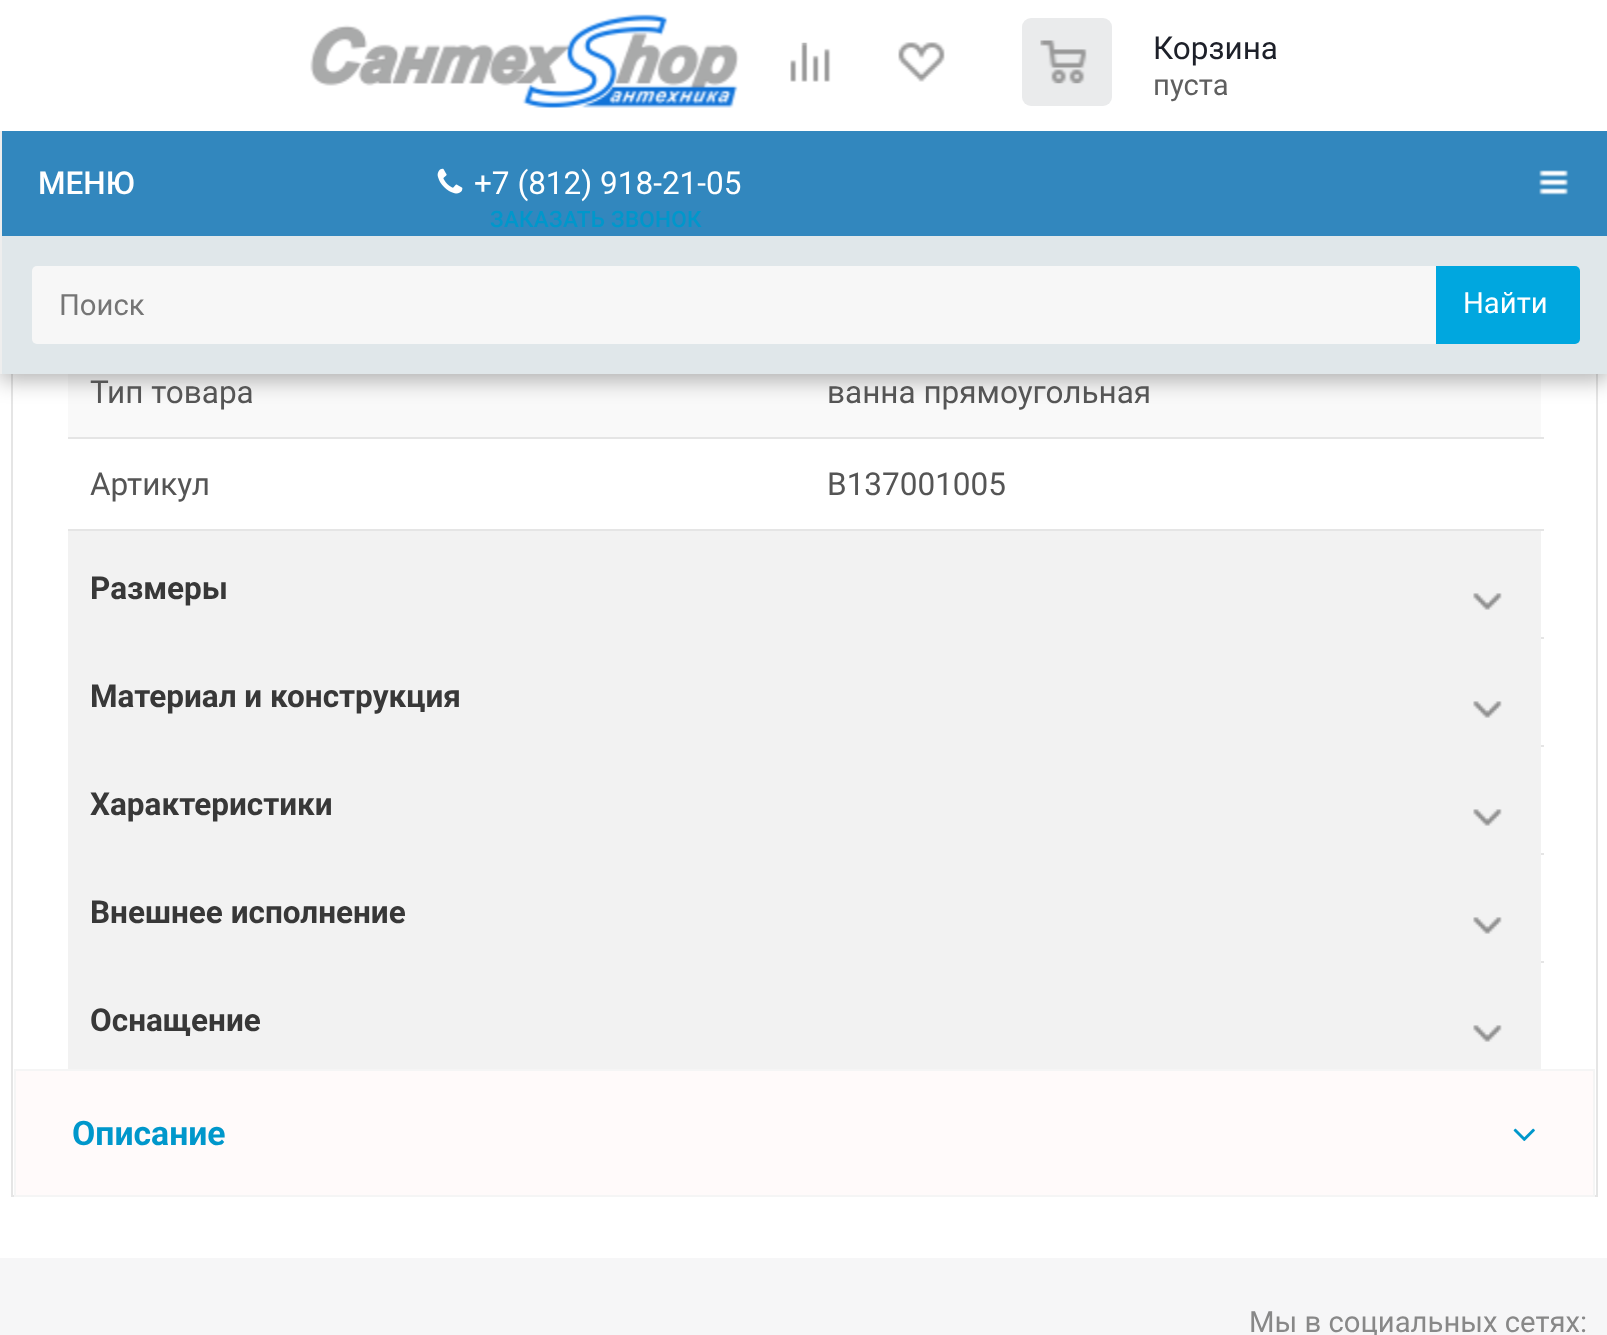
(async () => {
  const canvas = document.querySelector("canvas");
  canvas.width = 1607;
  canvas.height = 1335;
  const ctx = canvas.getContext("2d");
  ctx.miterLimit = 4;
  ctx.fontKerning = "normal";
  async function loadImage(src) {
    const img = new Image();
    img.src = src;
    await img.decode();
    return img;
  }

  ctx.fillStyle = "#f6f6f7";
  ctx.fillRect(0, 0, 1607, 1335);
  ctx.fillStyle = "#ffffff";
  ctx.fillRect(0, 374, 1607, 884);
  ctx.strokeStyle = "#e5e5e5";
  ctx.lineWidth = 2;
  ctx.strokeRect(12, 219, 1585, 977);
  ctx.fillStyle = "#f9f9f9";
  ctx.fillRect(68, 374, 1473, 63);
  ctx.fillStyle = "rgba(0, 0, 0, 0.3)";
  ctx.filter = "blur(11px)";
  ctx.beginPath();
  ctx.rect(0, 5, 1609, 375);
  ctx.fill();
  ctx.filter = "none";
  ctx.fillStyle = "#ffffff";
  ctx.fillRect(0, 0, 1607, 131);
  ctx.drawImage(await loadImage("img/1.png"), 310, 14, 429, 95);
  ctx.drawImage(await loadImage("img/2.png"), 790, 42, 41, 40);
  ctx.drawImage(await loadImage("img/3.png"), 898, 42, 47, 40);
  ctx.fillStyle = "#eaebec";
  ctx.beginPath();
  ctx.roundRect(1022, 18, 90, 88, 9);
  ctx.fill();
  ctx.drawImage(await loadImage("img/4.png"), 1040, 40, 47, 44);
  ctx.fillStyle = "#3287be";
  ctx.fillRect(2, 131, 1605, 105);
  ctx.drawImage(await loadImage("img/5.png"), 437, 168, 26, 26);
  ctx.fillStyle = "#eeeeee";
  ctx.fillRect(0, 131, 2, 243);
  ctx.drawImage(await loadImage("img/6.png"), 1539, 170, 30, 25);
  ctx.fillStyle = "#e0e7ea";
  ctx.fillRect(2, 236, 1605, 138);
  ctx.fillStyle = "#f7f7f7";
  ctx.beginPath();
  ctx.roundRect(32, 266, 1408, 78, 5);
  ctx.fill();
  ctx.fillStyle = "#00a7df";
  ctx.beginPath();
  ctx.roundRect(1436, 266, 144, 78, [0, 5, 5, 0]);
  ctx.fill();
  for (const [x, y, w, h, color] of [
    [68, 437, 1476, 2, "#e5e5e5"],
    [68, 529, 1476, 2, "#e5e5e5"],
    [68, 531, 1473, 538, "#f2f2f2"],
  ]) {
    ctx.fillStyle = color;
    ctx.fillRect(x, y, w, h);
  }
  ctx.drawImage(await loadImage("img/7.png"), 1473, 593, 29, 17);
  ctx.fillStyle = "#e5e5e5";
  ctx.fillRect(1541, 637, 3, 2);
  ctx.drawImage(await loadImage("img/7.png"), 1473, 701, 29, 17);
  ctx.fillRect(1541, 745, 3, 2);
  ctx.drawImage(await loadImage("img/7.png"), 1473, 809, 29, 17);
  ctx.fillRect(1541, 853, 3, 2);
  ctx.drawImage(await loadImage("img/7.png"), 1473, 917, 29, 17);
  ctx.fillRect(1541, 961, 3, 2);
  ctx.drawImage(await loadImage("img/7.png"), 1473, 1025, 29, 17);
  ctx.fillStyle = "#fffafa";
  ctx.beginPath();
  ctx.rect(15, 1070, 1579, 126);
  ctx.fill();
  ctx.strokeStyle = "#f5f5f5";
  ctx.stroke();
  ctx.drawImage(await loadImage("img/8.png"), 1513, 1128, 22, 13);
  ctx.font = "31.5px Roboto";
  ctx.fillStyle = "#1d2029";
  ctx.fillText("Корзина", 1153, 59);
  ctx.font = "29.25px Roboto";
  ctx.fillStyle = "#5f5f5f";
  ctx.fillText("пуста", 1153, 95);
  ctx.font = "31.5px Roboto";
  ctx.fillStyle = "#ffffff";
  ctx.fillText("+7 (812) 918-21-05", 474, 194);
  ctx.letterSpacing = "0.25px";
  ctx.font = "500 22.5px Roboto";
  ctx.fillStyle = "#0097cb";
  ctx.fillText("ЗАКАЗАТЬ ЗВОНОК", 490, 227);
  ctx.letterSpacing = "0px";
  ctx.font = "500 31.5px Roboto";
  ctx.fillStyle = "#ffffff";
  ctx.fillText("МЕНЮ", 38, 194);
  ctx.font = "29.25px Roboto";
  ctx.fillStyle = "#757575";
  ctx.fillText("Поиск", 59, 315);
  ctx.fillStyle = "#ffffff";
  ctx.fillText("Найти", 1463, 313);
  ctx.font = "31.5px Roboto";
  ctx.fillStyle = "#555555";
  for (const [text, x, y] of [
    ["Тип товара", 90, 403],
    ["ванна прямоугольная", 827, 403],
    ["Артикул", 90, 495],
    ["B137001005", 827, 495],
  ]) {
    ctx.fillText(text, x, y);
  }
  ctx.font = "bold 31.5px Roboto";
  ctx.fillStyle = "#383838";
  for (const [text, x, y] of [
    ["Размеры", 90, 599],
    ["Материал и конструкция", 90, 707],
    ["Характеристики", 90, 815],
    ["Внешнее исполнение", 90, 923],
    ["Оснащение", 90, 1031],
  ]) {
    ctx.fillText(text, x, y);
  }
  ctx.font = "bold 33.75px Roboto";
  ctx.fillStyle = "#0097cb";
  ctx.fillText("Описание", 72, 1145);
  ctx.font = "29.25px Roboto";
  ctx.fillStyle = "#888888";
  ctx.fillText("Мы в социальных сетях:", 1249, 1332);
})();
